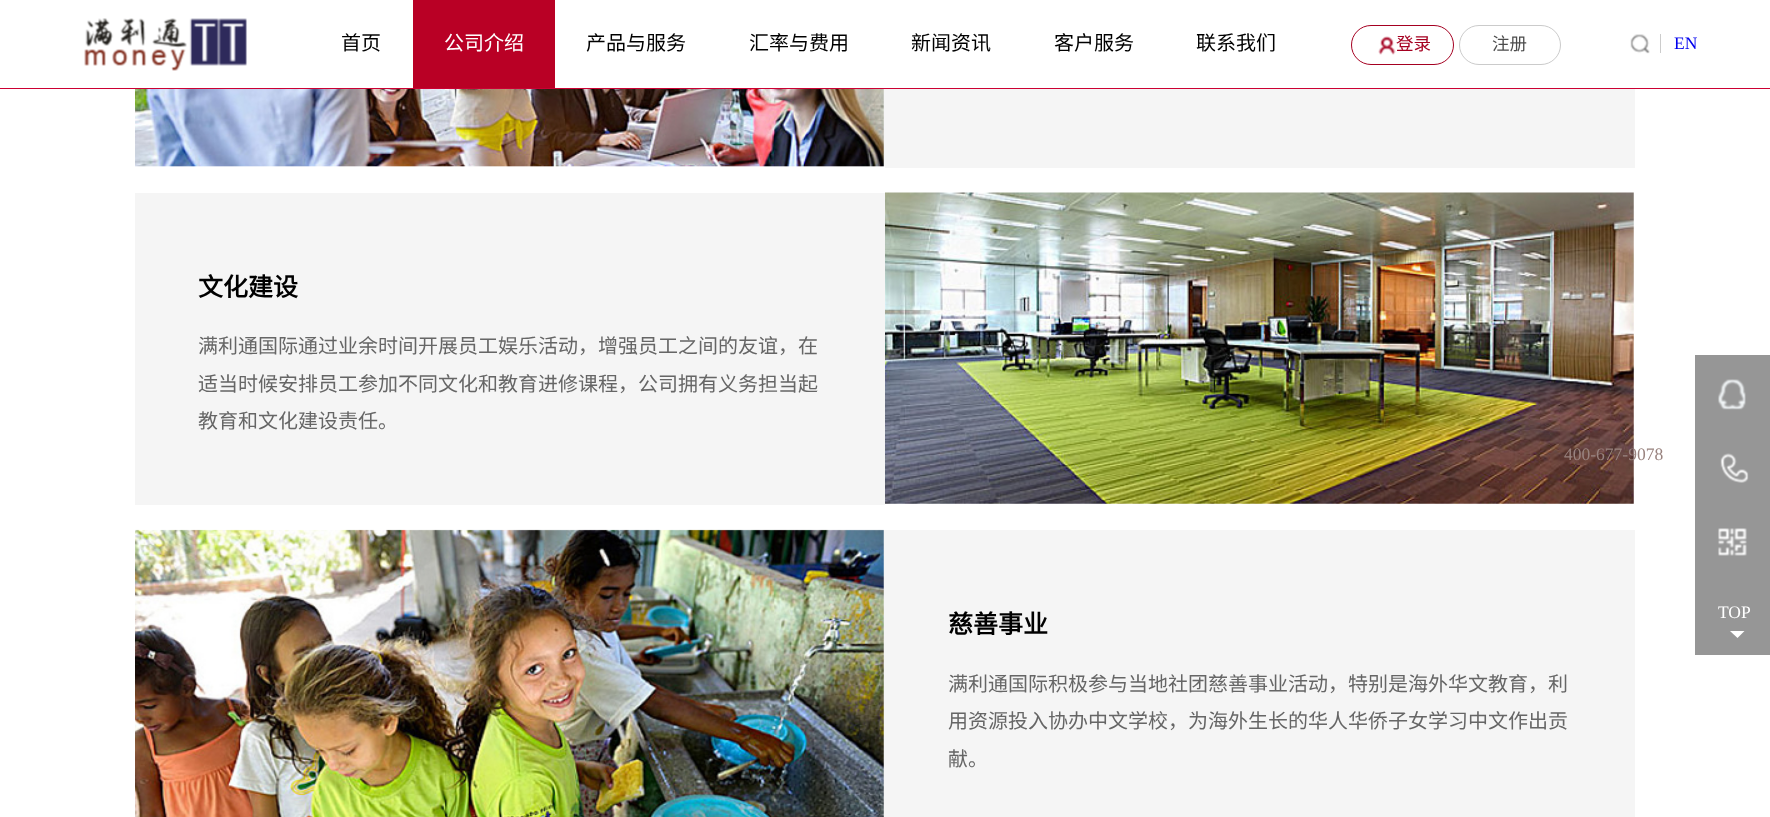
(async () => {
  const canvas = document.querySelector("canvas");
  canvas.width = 1770;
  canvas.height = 817;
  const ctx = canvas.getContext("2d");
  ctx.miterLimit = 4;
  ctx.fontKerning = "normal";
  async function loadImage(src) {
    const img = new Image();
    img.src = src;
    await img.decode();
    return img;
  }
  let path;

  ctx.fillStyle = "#ffffff";
  ctx.fillRect(0, 0, 1770, 817);
  ctx.fillStyle = "#cc0033";
  ctx.fillRect(0, 88, 1770, 1);
  ctx.drawImage(await loadImage("img/1.png"), 84, 18, 163, 53);
  ctx.fillStyle = "#b90025";
  ctx.fillRect(413, 0, 142, 88);
  ctx.beginPath();
  ctx.roundRect(1351.5, 25.5, 102, 39, 19.5);
  ctx.strokeStyle = "#a50021";
  ctx.stroke();
  ctx.drawImage(await loadImage("img/2.png"), 1378, 36, 18, 19);
  ctx.beginPath();
  ctx.roundRect(1459.5, 25.5, 101, 39, 19.5);
  ctx.strokeStyle = "#cbcbcb";
  ctx.stroke();
  ctx.drawImage(await loadImage("img/3.png"), 1630, 34, 20, 20);
  ctx.fillStyle = "#cccccc";
  ctx.fillRect(1660, 34, 1, 19);
  ctx.drawImage(await loadImage("img/4.png"), 135, 89, 750, 79);
  ctx.fillStyle = "#f5f5f5";
  ctx.fillRect(885, 89, 750, 79);
  ctx.fillRect(135, 193, 750, 312);
  ctx.drawImage(await loadImage("img/5.png"), 885, 192, 750, 313);
  ctx.fillRect(135, 530, 1500, 287);
  ctx.drawImage(await loadImage("img/6.png"), 135, 529, 749, 288);
  ctx.fillStyle = "#969696";
  ctx.fillRect(1695, 355, 75, 300);
  ctx.drawImage(await loadImage("img/7.png"), 1720, 453, 29, 30);
  ctx.drawImage(await loadImage("img/8.png"), 1718, 379, 28, 31);
  ctx.drawImage(await loadImage("img/9.png"), 1718, 528, 29, 28);
  ctx.fillStyle = "#ffffff";
  path = new Path2D("M1744.5 631L1737.5 638L1730 631Z");
  ctx.fill(path);
  ctx.font = "20px Noto Sans CJK SC";
  ctx.fillStyle = "#000000";
  ctx.fillText("首页", 341, 50);
  ctx.fillStyle = "#ffffff";
  ctx.fillText("公司介绍", 444, 50);
  ctx.fillStyle = "#000000";
  for (const [text, x, y] of [
    ["产品与服务", 586, 50],
    ["汇率与费用", 749, 50],
    ["新闻资讯", 911, 50],
    ["客户服务", 1054, 50],
    ["联系我们", 1196, 50],
  ]) {
    ctx.fillText(text, x, y);
  }
  ctx.font = "17.5px Noto Sans CJK SC";
  ctx.fillStyle = "#a50021";
  ctx.fillText("登录", 1396, 50);
  ctx.fillStyle = "#4c4c4c";
  ctx.fillText("注册", 1492, 50);
  ctx.font = "17.5px Liberation Serif";
  ctx.fillStyle = "#0000ee";
  ctx.fillText("EN", 1674, 49);
  ctx.font = "bold 25px Noto Sans CJK SC";
  ctx.fillStyle = "#000000";
  ctx.fillText("文化建设", 198, 296);
  ctx.font = "20px Noto Sans CJK SC";
  ctx.fillStyle = "#666666";
  for (const [text, x, y] of [
    ["满利通国际通过业余时间开展员工娱乐活动，增强员工之间的友谊，在", 198, 353],
    ["适当时候安排员工参加不同文化和教育进修课程，公司拥有义务担当起", 198, 391],
    ["教育和文化建设责任。", 198, 428],
  ]) {
    ctx.fillText(text, x, y);
  }
  ctx.font = "bold 25px Noto Sans CJK SC";
  ctx.fillStyle = "#000000";
  ctx.fillText("慈善事业", 948, 633);
  ctx.font = "20px Noto Sans CJK SC";
  ctx.fillStyle = "#666666";
  for (const [text, x, y] of [
    ["满利通国际积极参与当地社团慈善事业活动，特别是海外华文教育，利", 948, 691],
    ["用资源投入协办中文学校，为海外生长的华人华侨子女学习中文作出贡", 948, 728],
    ["献。", 948, 766],
  ]) {
    ctx.fillText(text, x, y);
  }
  ctx.font = "17.5px Liberation Serif";
  ctx.fillStyle = "#99837f";
  ctx.fillText("400-677-9078", 1564, 460);
  ctx.fillStyle = "#ffffff";
  ctx.fillText("TOP", 1718, 618);
})();
